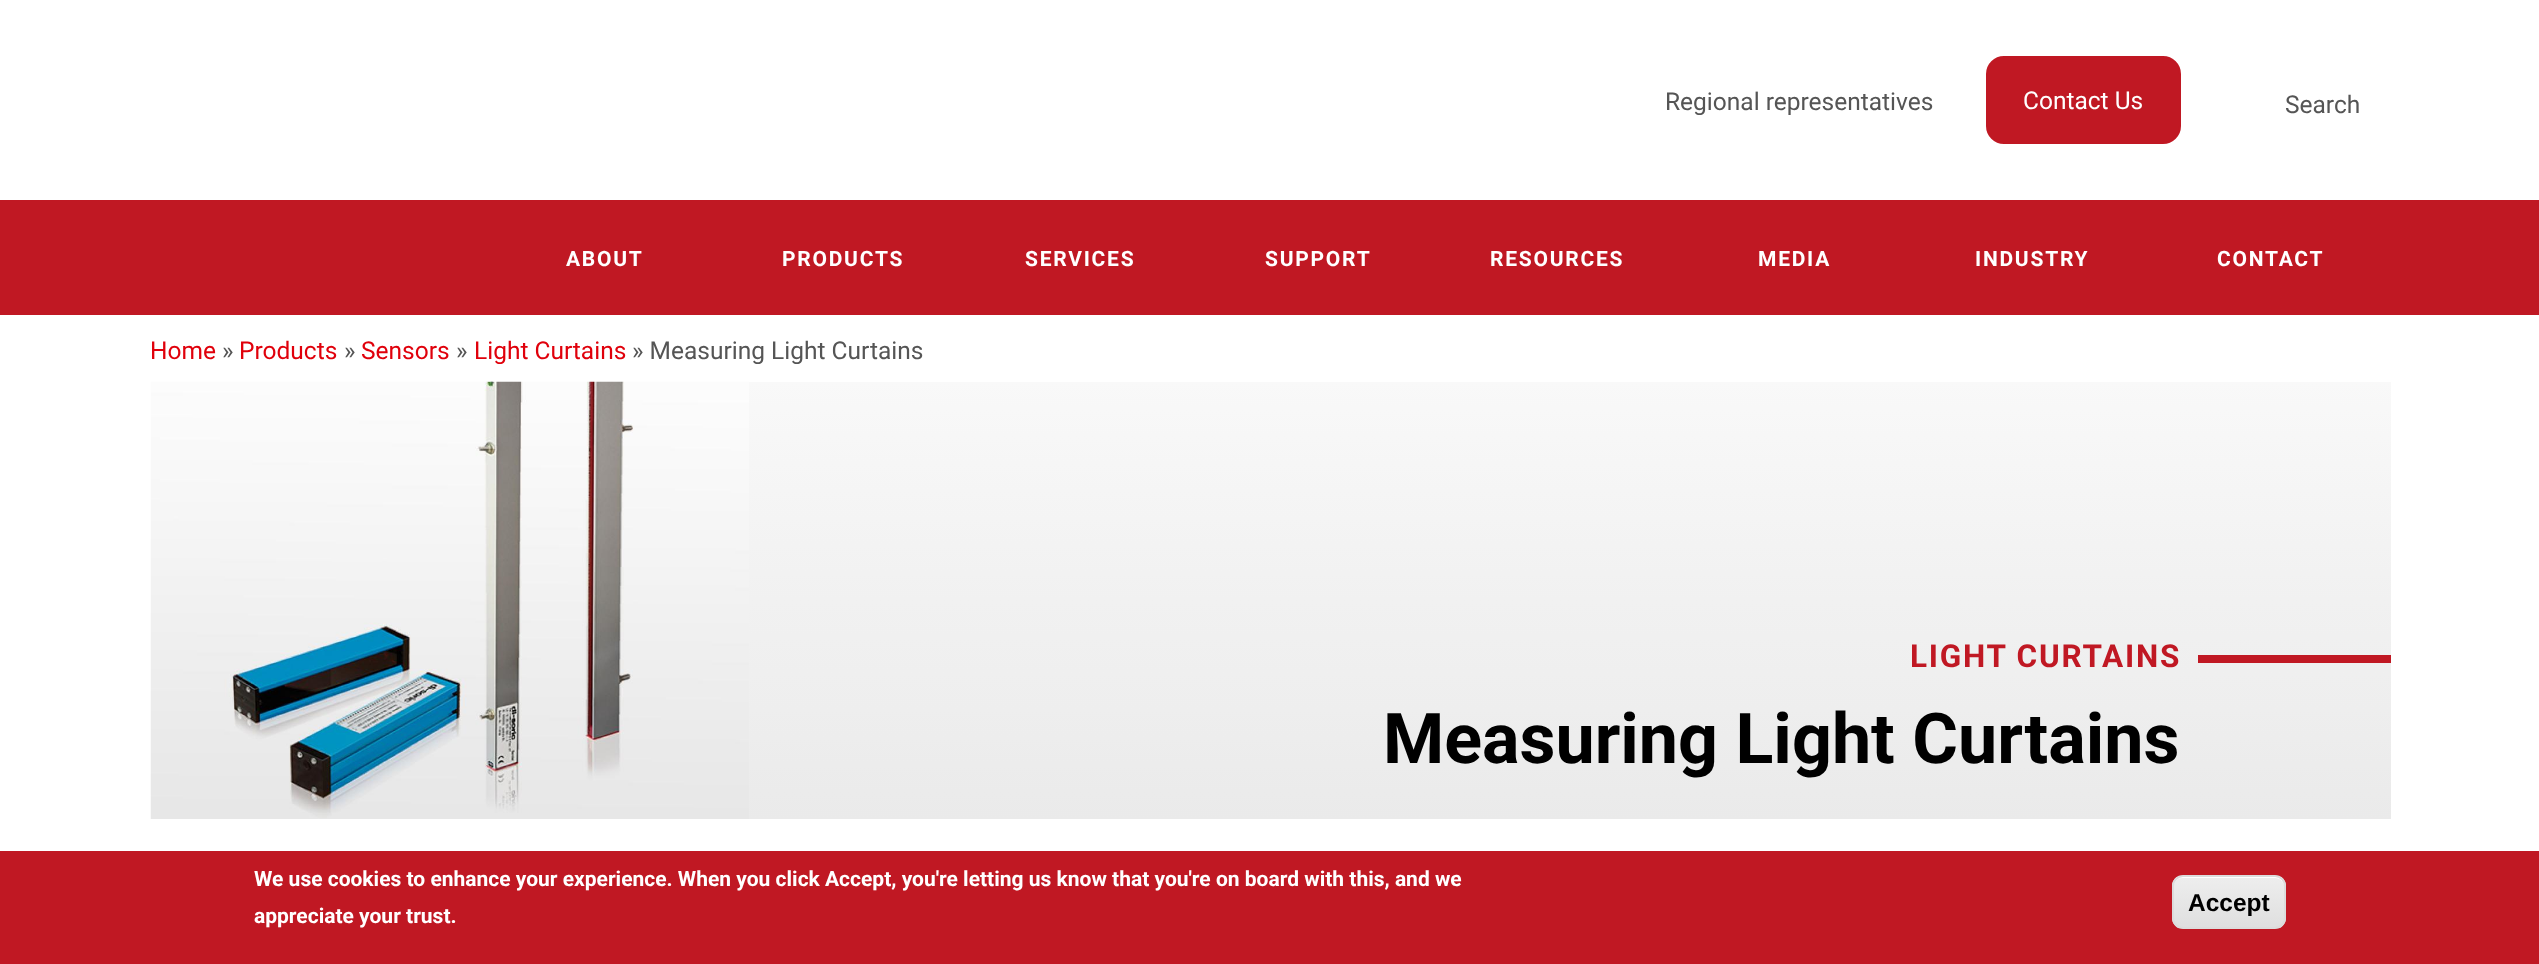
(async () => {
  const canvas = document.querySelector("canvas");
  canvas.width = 2539;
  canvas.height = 964;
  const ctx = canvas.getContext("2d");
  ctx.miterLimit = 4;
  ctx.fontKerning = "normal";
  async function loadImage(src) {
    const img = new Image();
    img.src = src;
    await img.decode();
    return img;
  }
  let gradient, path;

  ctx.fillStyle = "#ffffff";
  ctx.fillRect(0, 0, 2539, 964);
  ctx.fillStyle = "#c01823";
  ctx.beginPath();
  ctx.roundRect(1987, 57, 193, 86, 17);
  ctx.fill();
  ctx.strokeStyle = "#c01823";
  ctx.lineWidth = 2;
  ctx.stroke();
  ctx.fillRect(0, 200, 2539, 115);
  gradient = ctx.createLinearGradient(1271, 381, 1271, 819);
  gradient.addColorStop(0, "#f9f9f9");
  gradient.addColorStop(0.25, "#f5f5f5");
  gradient.addColorStop(0.5, "#f1f1f1");
  gradient.addColorStop(0.75, "#eeeeee");
  gradient.addColorStop(1, "#eaeaea");
  ctx.fillStyle = gradient;
  ctx.fillRect(749, 382, 1642, 437);
  ctx.drawImage(await loadImage("img/1.png"), 150, 381, 599, 438);
  ctx.fillStyle = "#c01823";
  ctx.fillRect(2198, 655, 193, 8);
  ctx.fillRect(0, 851, 2539, 113);
  ctx.save();
  ctx.beginPath();
  ctx.roundRect(2172, 875, 114, 54, 11);
  ctx.clip();
  gradient = ctx.createLinearGradient(2229, 877, 2229, 928);
  gradient.addColorStop(0.05, "#ededed");
  gradient.addColorStop(1, "#dfdfdf");
  ctx.fillStyle = gradient;
  ctx.fillRect(2172, 877, 114, 51);
  ctx.restore();
  ctx.fillStyle = "#ffffff";
  path = new Path2D("M2182 878H2275C2280 878 2284 882 2284 887C2284 873 2269 877 2260 877H2198C2189 877 2174 873 2174 887C2174 882 2177 878 2182 878Z");
  ctx.fill(path);
  ctx.beginPath();
  ctx.roundRect(2173, 876, 112, 52, 10);
  ctx.strokeStyle = "#dcdcdc";
  ctx.stroke();
  ctx.font = "24.5px Roboto";
  ctx.fillStyle = "#555555";
  ctx.fillText("Regional representatives", 1665, 110);
  ctx.fillStyle = "#ffffff";
  ctx.fillText("Contact Us", 2023, 109);
  ctx.fillStyle = "#555555";
  ctx.fillText("Search", 2285, 113);
  ctx.letterSpacing = "1.75px";
  ctx.font = "bold 21px Roboto";
  ctx.fillStyle = "#ffffff";
  for (const [text, x, y] of [
    ["ABOUT", 566, 266],
    ["PRODUCTS", 782, 266],
    ["SERVICES", 1025, 266],
    ["SUPPORT", 1265, 266],
    ["RESOURCES", 1490, 266],
    ["MEDIA", 1758, 266],
    ["INDUSTRY", 1975, 266],
    ["CONTACT", 2217, 266],
  ]) {
    ctx.fillText(text, x, y);
  }
  ctx.letterSpacing = "0px";
  ctx.font = "24.5px Roboto";
  ctx.fillStyle = "#e0000b";
  ctx.fillText("Home", 150, 359);
  ctx.fillStyle = "#555555";
  ctx.fillText("»", 222, 359);
  ctx.fillStyle = "#e0000b";
  ctx.fillText("Products", 239, 359);
  ctx.fillStyle = "#555555";
  ctx.fillText("»", 344, 359);
  ctx.fillStyle = "#e0000b";
  ctx.fillText("Sensors", 361, 359);
  ctx.fillStyle = "#555555";
  ctx.fillText("»", 456, 359);
  ctx.fillStyle = "#e0000b";
  ctx.fillText("Light Curtains", 474, 359);
  ctx.fillStyle = "#555555";
  ctx.fillText("» Measuring Light Curtains", 632, 359);
  ctx.letterSpacing = "1.75px";
  ctx.font = "bold 31.5px Roboto";
  ctx.fillStyle = "#c01823";
  ctx.fillText("LIGHT CURTAINS", 1910, 667);
  ctx.letterSpacing = "0px";
  ctx.font = "bold 70px Roboto";
  ctx.fillStyle = "#000000";
  ctx.fillText("Measuring Light Curtains", 1383, 763);
  ctx.font = "bold 21px Roboto";
  ctx.fillStyle = "#ffffff";
  ctx.fillText("We use cookies to enhance your experience. When you click Accept, you're letting us know that you're on board with this, and we", 254, 886);
  ctx.fillText("appreciate your trust.", 254, 923);
  ctx.font = "bold 24.5px Liberation Sans";
  ctx.fillStyle = "#000000";
  ctx.fillText("Accept", 2188, 911);
})();
